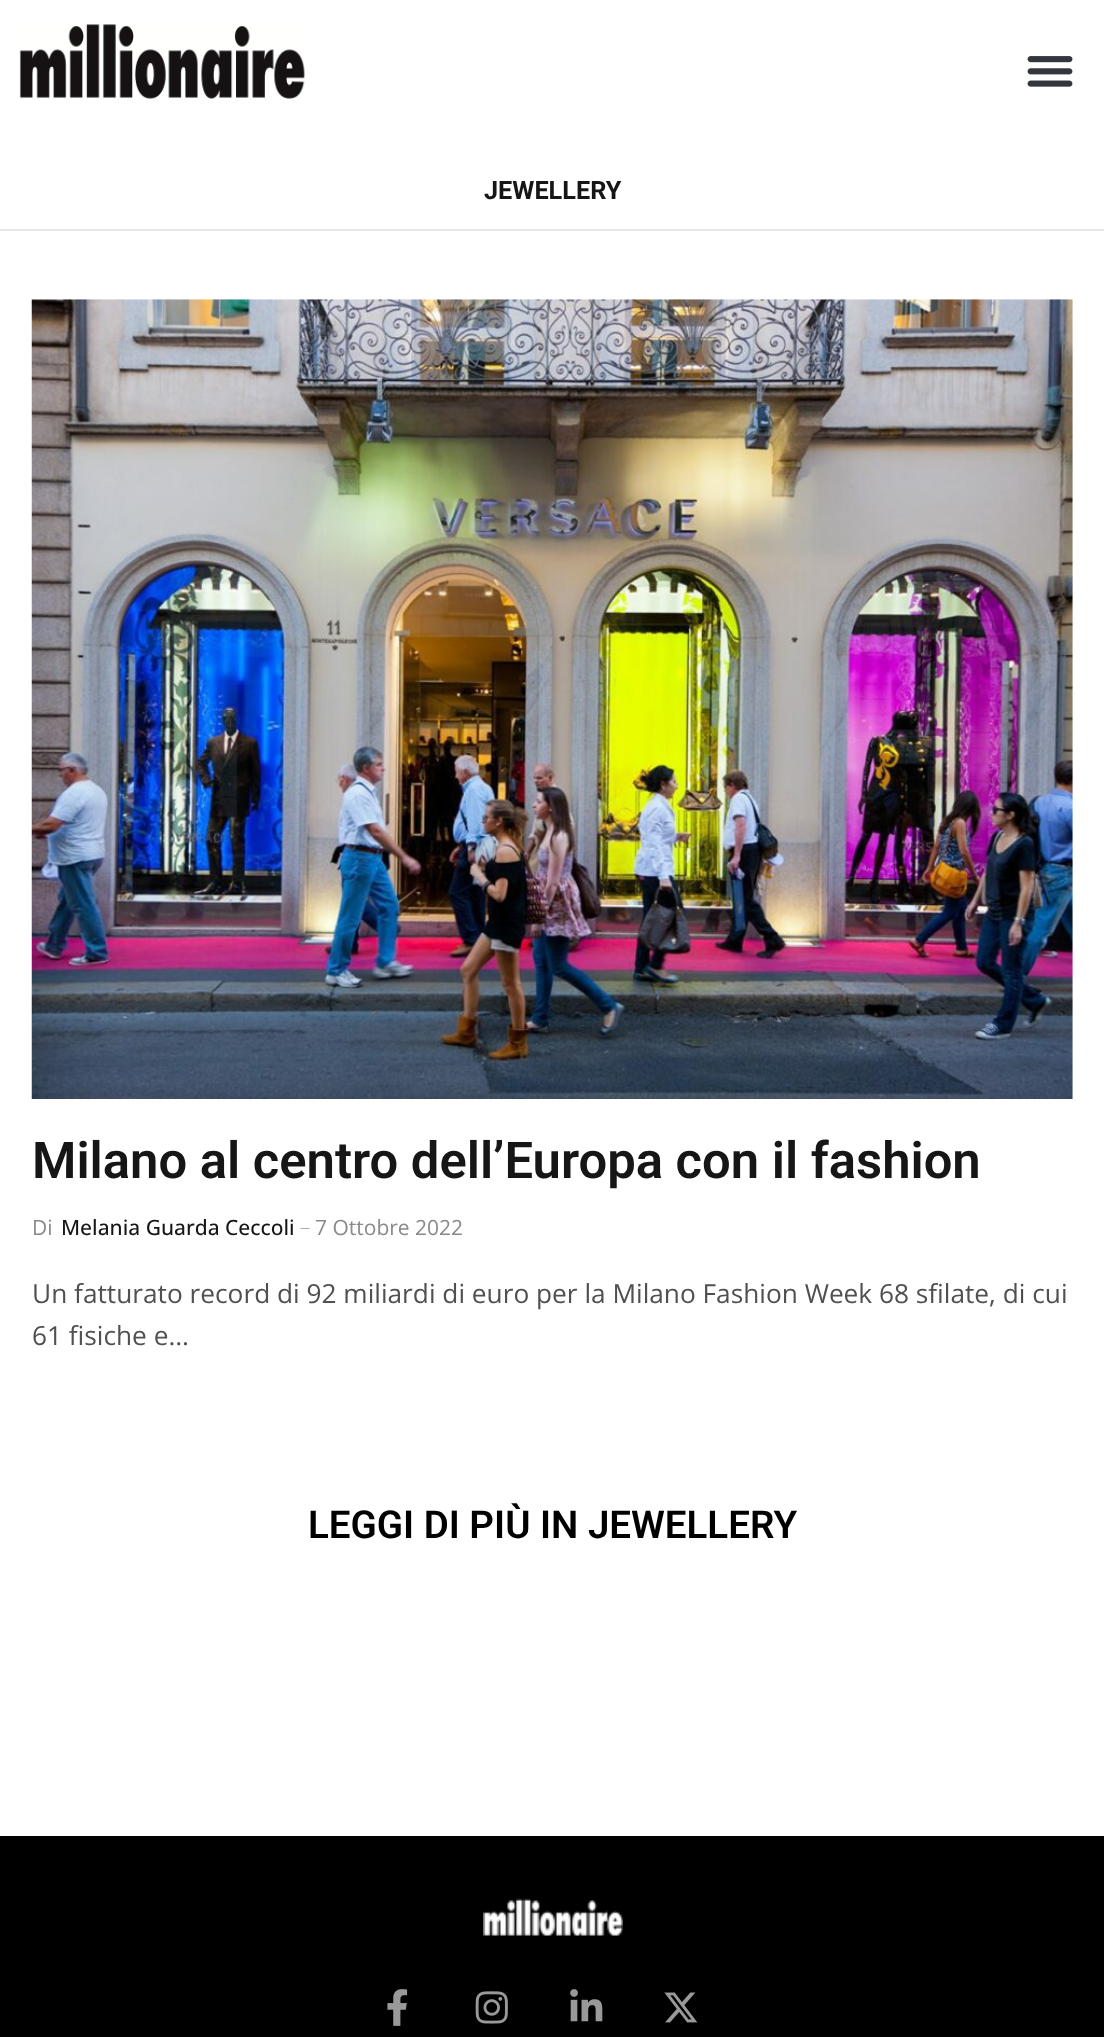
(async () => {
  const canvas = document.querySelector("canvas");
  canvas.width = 1104;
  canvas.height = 2037;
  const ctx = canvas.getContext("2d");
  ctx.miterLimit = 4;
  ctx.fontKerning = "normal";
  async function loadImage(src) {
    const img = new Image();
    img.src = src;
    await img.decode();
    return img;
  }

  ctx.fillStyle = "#ffffff";
  ctx.fillRect(0, 0, 1104, 2037);
  ctx.drawImage(await loadImage("img/1.png"), 19, 23, 286, 76);
  ctx.drawImage(await loadImage("img/2.png"), 1027, 56, 46, 31);
  ctx.fillStyle = "#e5e5e5";
  ctx.fillRect(0, 229, 1104, 2);
  ctx.drawImage(await loadImage("img/3.png"), 31, 299, 1042, 800);
  ctx.fillStyle = "#000000";
  ctx.fillRect(0, 1836, 1104, 201);
  ctx.drawImage(await loadImage("img/4.png"), 483, 1898, 140, 38);
  ctx.drawImage(await loadImage("img/5.png"), 387, 1989, 21, 37);
  ctx.drawImage(await loadImage("img/6.png"), 475, 1991, 33, 33);
  ctx.drawImage(await loadImage("img/7.png"), 570, 1989, 33, 33);
  ctx.drawImage(await loadImage("img/8.png"), 664, 1992, 34, 31);
  ctx.font = "bold 25.25px Roboto";
  ctx.fillStyle = "#161616";
  ctx.fillText("JEWELLERY", 484, 199);
  ctx.font = "600 50.75px Roboto";
  ctx.fillText("Milano al centro dell’Europa con il fashion", 32, 1178);
  ctx.font = "21px Open Sans";
  ctx.fillStyle = "#8a8a8a";
  ctx.fillText("Di", 32, 1235);
  ctx.font = "500 21px Open Sans";
  ctx.fillStyle = "#161616";
  ctx.fillText("Melania Guarda Ceccoli", 61, 1235);
  ctx.font = "10px Open Sans";
  ctx.fillStyle = "#8a8a8a";
  ctx.fillText("—", 300, 1231);
  ctx.font = "21px Open Sans";
  ctx.fillText("7 Ottobre 2022", 315, 1235);
  ctx.font = "26.25px Open Sans";
  ctx.fillStyle = "#505050";
  ctx.fillText("Un fatturato record di 92 miliardi di euro per la Milano Fashion Week 68 sfilate, di cui", 32, 1303);
  ctx.fillText("61 fisiche e…", 32, 1345);
  ctx.font = "600 38.5px Roboto";
  ctx.fillStyle = "#000000";
  ctx.fillText("LEGGI DI PIÙ IN JEWELLERY", 308, 1538);
})();
